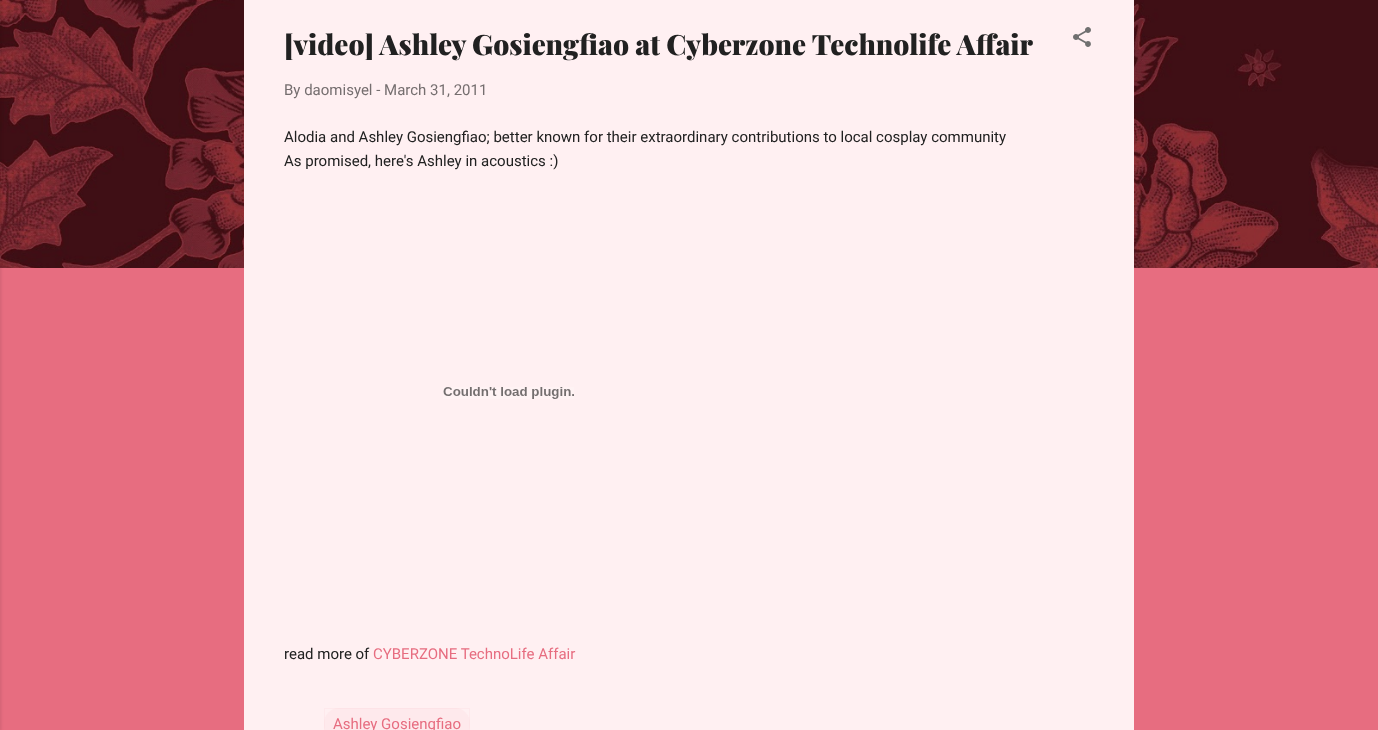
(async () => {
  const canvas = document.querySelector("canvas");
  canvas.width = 1378;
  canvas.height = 730;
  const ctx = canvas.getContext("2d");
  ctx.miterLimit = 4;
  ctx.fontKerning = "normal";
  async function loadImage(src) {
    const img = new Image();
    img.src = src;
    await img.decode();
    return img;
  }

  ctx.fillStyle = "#e76d80";
  ctx.fillRect(0, 0, 1378, 730);
  ctx.drawImage(await loadImage("img/1.png"), 0, 0, 1378, 268);
  ctx.fillStyle = "rgba(0, 0, 0, 0.1)";
  ctx.filter = "blur(1.5px)";
  ctx.beginPath();
  ctx.rect(-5, 1, 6, 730);
  ctx.fill();
  ctx.filter = "none";
  ctx.fillStyle = "#fff0f2";
  ctx.fillRect(244, 0, 890, 730);
  ctx.drawImage(await loadImage("img/2.png"), 1073, 27, 18, 20);
  ctx.drawImage(await loadImage("img/3.png"), 443, 387, 131, 12);
  ctx.fillStyle = "#fee9ec";
  ctx.beginPath();
  ctx.roundRect(324, 708, 146, 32, 15);
  ctx.fill();
  ctx.strokeStyle = "rgba(231, 109, 128, 0.05)";
  ctx.strokeRect(324.5, 708.5, 145, 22);
  ctx.font = "900 28px Playfair Display";
  ctx.fillStyle = "#212121";
  ctx.fillText("[video] Ashley Gosiengfiao at Cyberzone Technolife Affair", 284, 55);
  ctx.font = "15px Roboto";
  ctx.fillStyle = "#756e6f";
  ctx.fillText("By daomisyel - March 31, 2011", 284, 95);
  ctx.fillStyle = "#212121";
  for (const [text, x, y] of [
    ["Alodia and Ashley Gosiengfiao; better known for their extraordinary contributions to local cosplay community", 284, 142],
    ["As promised, here's Ashley in acoustics :)", 284, 166],
    ["read more of", 284, 659],
  ]) {
    ctx.fillText(text, x, y);
  }
  ctx.fillStyle = "#e76d80";
  ctx.fillText("CYBERZONE TechnoLife Affair", 373, 659);
  ctx.fillText("Ashley Gosiengfiao", 333, 729);
})();
